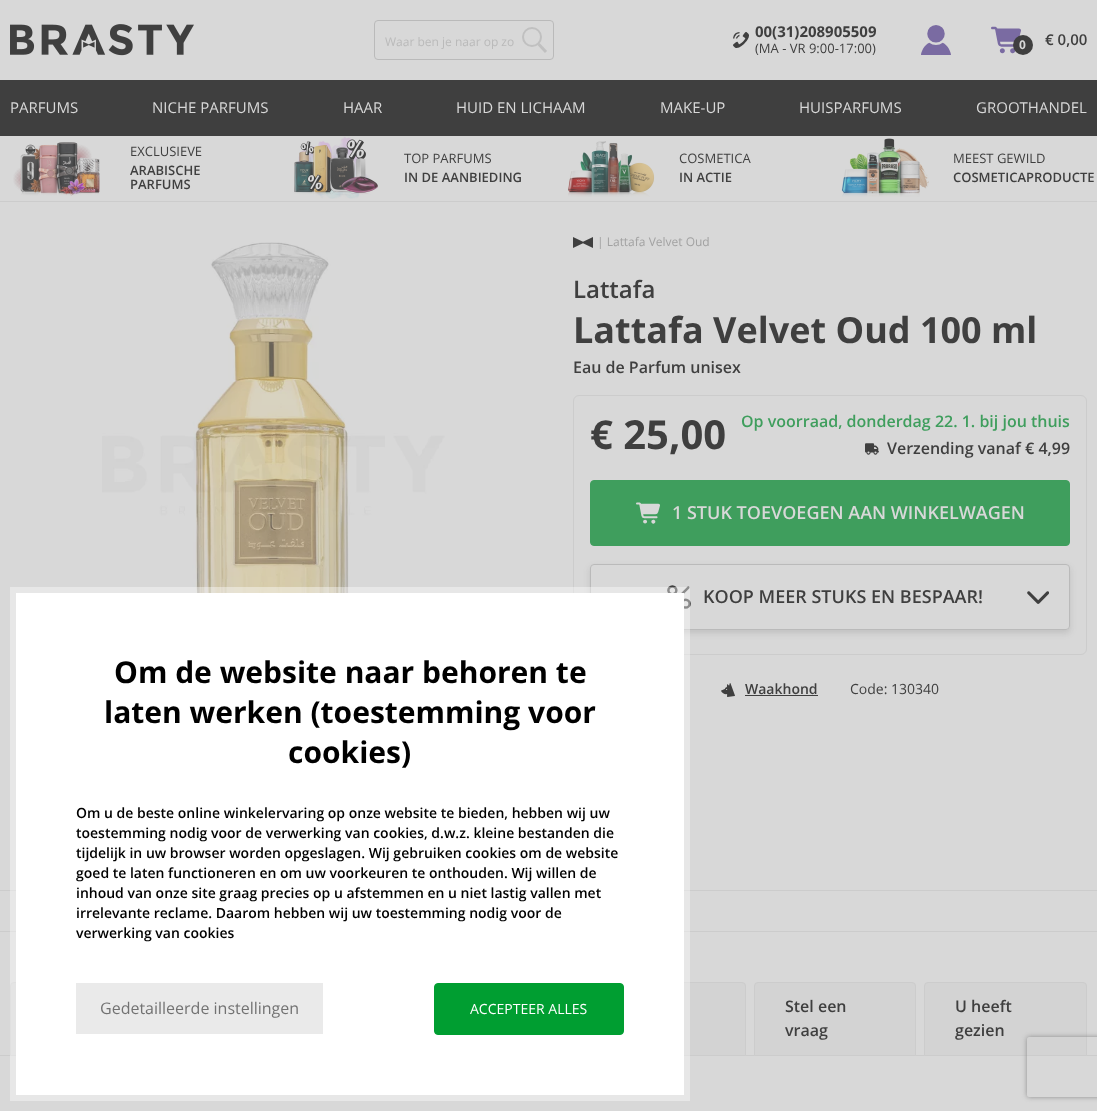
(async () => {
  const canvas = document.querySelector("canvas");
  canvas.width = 1097;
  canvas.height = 1111;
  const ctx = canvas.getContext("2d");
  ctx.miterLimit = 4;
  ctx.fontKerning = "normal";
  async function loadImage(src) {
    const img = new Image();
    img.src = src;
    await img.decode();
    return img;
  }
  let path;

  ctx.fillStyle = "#d8d8d8";
  ctx.fillRect(0, 0, 1097, 1111);
  ctx.drawImage(await loadImage("img/1.png"), 10, 24, 184, 32);
  ctx.beginPath();
  ctx.roundRect(374.5, 20.5, 179, 39, 3.5);
  ctx.strokeStyle = "#bababa";
  ctx.stroke();
  ctx.drawImage(await loadImage("img/2.png"), 522, 27, 25, 26);
  ctx.drawImage(await loadImage("img/3.png"), 733, 32, 16, 16);
  ctx.drawImage(await loadImage("img/4.png"), 921, 25, 30, 30);
  ctx.drawImage(await loadImage("img/5.png"), 991, 26, 30, 28);
  ctx.fillStyle = "#3f3f3f";
  ctx.beginPath();
  ctx.arc(1023, 45, 10, 0, Math.PI * 2);
  ctx.fill();
  ctx.fillRect(0, 80, 1097, 56);
  ctx.fillStyle = "#cccccc";
  ctx.fillRect(0, 201, 1097, 1);
  ctx.drawImage(await loadImage("img/6.png"), 13, 142, 87, 54);
  ctx.drawImage(await loadImage("img/7.png"), 294, 136, 84, 63);
  ctx.drawImage(await loadImage("img/8.png"), 568, 141, 87, 56);
  ctx.drawImage(await loadImage("img/9.png"), 841, 138, 88, 59);
  ctx.drawImage(await loadImage("img/10.png"), 102, 242, 343, 351);
  ctx.beginPath();
  ctx.roundRect(573.5, 395.5, 513, 259, 5.5);
  ctx.strokeStyle = "#cccccc";
  ctx.stroke();
  ctx.save();
  path = new Path2D("M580 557H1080V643H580ZM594 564H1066C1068 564 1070 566 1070 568V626C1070 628 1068 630 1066 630H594C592 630 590 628 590 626V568C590 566 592 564 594 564Z");
  ctx.clip(path, "evenodd");
  ctx.fillStyle = "rgba(66, 66, 66, 0.16)";
  ctx.filter = "blur(3px)";
  ctx.beginPath();
  ctx.roundRect(590, 567, 480, 66, 4);
  ctx.fill();
  ctx.filter = "none";
  ctx.restore();
  ctx.beginPath();
  ctx.roundRect(590.5, 564.5, 479, 65, 3.5);
  ctx.strokeStyle = "#bababa";
  ctx.stroke();
  ctx.drawImage(await loadImage("img/14.png"), 667, 585, 24, 24);
  for (const [x, y, w, h, color] of [
    [0, 890, 1097, 1, "#cccccc"],
    [0, 931, 1097, 1, "#cccccc"],
    [0, 1055, 1097, 1, "#cccccc"],
  ]) {
    ctx.fillStyle = color;
    ctx.fillRect(x, y, w, h);
  }
  ctx.fillStyle = "#d3d3d3";
  ctx.beginPath();
  ctx.roundRect(10.5, 982.5, 208, 73, [3.5, 3.5, 0, 0]);
  ctx.fill();
  ctx.strokeStyle = "#cccccc";
  ctx.stroke();
  ctx.beginPath();
  ctx.roundRect(555.5, 982.5, 190, 73, [3.5, 3.5, 0, 0]);
  ctx.fill();
  ctx.stroke();
  ctx.strokeStyle = "rgba(255, 255, 255, 0.4)";
  ctx.lineWidth = 6;
  ctx.strokeRect(13, 590, 674, 508);
  ctx.fillStyle = "#ffffff";
  ctx.fillRect(16, 593, 668, 502);
  ctx.fillStyle = "#eaeaea";
  ctx.fillRect(76, 983, 247, 51);
  ctx.fillStyle = "#009e31";
  ctx.beginPath();
  ctx.roundRect(434.5, 983.5, 189, 51, 3.5);
  ctx.fill();
  ctx.strokeStyle = "#009e31";
  ctx.lineWidth = 1;
  ctx.stroke();
  ctx.drawImage(await loadImage("img/11.png"), 573, 237, 20, 11);
  ctx.drawImage(await loadImage("img/12.png"), 865, 443, 14, 12);
  ctx.fillStyle = "#3f9e5d";
  ctx.beginPath();
  ctx.roundRect(590.5, 480.5, 479, 65, 3.5);
  ctx.fill();
  ctx.strokeStyle = "#3f9e5d";
  ctx.stroke();
  ctx.drawImage(await loadImage("img/13.png"), 636, 502, 24, 22);
  ctx.drawImage(await loadImage("img/15.png"), 1027, 591, 22, 13);
  ctx.drawImage(await loadImage("img/16.png"), 721, 683, 14, 14);
  ctx.fillStyle = "#3f3f3f";
  ctx.fillRect(745, 695, 73, 1);
  ctx.fillStyle = "#d3d3d3";
  ctx.beginPath();
  ctx.roundRect(754.5, 982.5, 161, 73, [3.5, 3.5, 0, 0]);
  ctx.fill();
  ctx.strokeStyle = "#cccccc";
  ctx.stroke();
  ctx.beginPath();
  ctx.roundRect(924.5, 982.5, 162, 73, [3.5, 3.5, 0, 0]);
  ctx.fill();
  ctx.stroke();
  ctx.save();
  path = new Path2D("M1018 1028H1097V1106H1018ZM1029 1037H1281C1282 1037 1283 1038 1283 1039V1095C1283 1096 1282 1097 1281 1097H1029C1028 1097 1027 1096 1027 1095V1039C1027 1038 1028 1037 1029 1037Z");
  ctx.clip(path, "evenodd");
  ctx.fillStyle = "#8c8c8c";
  ctx.filter = "blur(2.5px)";
  ctx.beginPath();
  ctx.roundRect(1027, 1037, 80, 60, 2);
  ctx.fill();
  ctx.filter = "none";
  ctx.restore();
  ctx.font = "12px Open Sans";
  ctx.fillStyle = "#bababa";
  ctx.fillText("Waar ben je naar op zo", 385, 46);
  ctx.font = "bold 15px Open Sans";
  ctx.fillStyle = "#3f3f3f";
  ctx.fillText("00(31)208905509", 755, 37);
  ctx.font = "13px Open Sans";
  ctx.fillText("(MA - VR 9:00-17:00)", 755, 53);
  ctx.font = "bold 12px Open Sans";
  ctx.fillStyle = "#d8d8d8";
  ctx.fillText("0", 1019, 49);
  ctx.font = "600 15px Open Sans";
  ctx.fillStyle = "#3f3f3f";
  ctx.fillText("€ 0,00", 1045, 45);
  ctx.font = "15px Open Sans";
  ctx.fillStyle = "#d8d8d8";
  for (const [text, x, y] of [
    ["PARFUMS", 10, 113],
    ["NICHE PARFUMS", 152, 113],
    ["HAAR", 343, 113],
    ["HUID EN LICHAAM", 456, 113],
    ["MAKE-UP", 660, 113],
    ["HUISPARFUMS", 799, 113],
    ["GROOTHANDEL", 976, 113],
  ]) {
    ctx.fillText(text, x, y);
  }
  ctx.font = "13px Open Sans";
  ctx.fillStyle = "#3f3f3f";
  ctx.fillText("EXCLUSIEVE", 130, 156);
  ctx.font = "600 13px Open Sans";
  ctx.fillText("ARABISCHE", 130, 175);
  ctx.fillText("PARFUMS", 130, 189);
  ctx.font = "13px Open Sans";
  ctx.fillText("TOP PARFUMS", 404, 163);
  ctx.font = "600 13px Open Sans";
  ctx.fillText("IN DE AANBIEDING", 404, 182);
  ctx.font = "13px Open Sans";
  ctx.fillText("COSMETICA", 679, 163);
  ctx.font = "600 13px Open Sans";
  ctx.fillText("IN ACTIE", 679, 182);
  ctx.font = "13px Open Sans";
  ctx.fillText("MEEST GEWILD", 953, 163);
  ctx.font = "600 13px Open Sans";
  ctx.fillText("COSMETICAPRODUCTE", 953, 182);
  ctx.font = "bold 30px Open Sans";
  ctx.fillStyle = "#000000";
  for (const [text, x, y] of [
    ["Om de website naar behoren te", 114, 683],
    ["laten werken (toestemming voor", 104, 723],
    ["cookies)", 288, 763],
  ]) {
    ctx.fillText(text, x, y);
  }
  ctx.font = "600 14px Open Sans";
  for (const [text, x, y] of [
    ["Om u de beste online winkelervaring op onze website te bieden, hebben wij uw", 76, 818],
    ["toestemming nodig voor de verwerking van cookies, d.w.z. kleine bestanden die", 76, 838],
    ["tijdelijk in uw browser worden opgeslagen. Wij gebruiken cookies om de website", 76, 858],
    ["goed te laten functioneren en om uw voorkeuren te onthouden. Wij willen de", 76, 878],
    ["inhoud van onze site graag precies op u afstemmen en u niet lastig vallen met", 76, 898],
    ["irrelevante reclame. Daarom hebben wij uw toestemming nodig voor de", 76, 918],
    ["verwerking van cookies", 76, 938],
  ]) {
    ctx.fillText(text, x, y);
  }
  ctx.font = "16px Open Sans";
  ctx.fillStyle = "#727272";
  ctx.fillText("Gedetailleerde instellingen", 100, 1014);
  ctx.font = "14px Open Sans";
  ctx.fillStyle = "#ffffff";
  ctx.fillText("ACCEPTEER ALLES", 470, 1014);
  ctx.font = "12px Open Sans";
  ctx.fillStyle = "#a2a2a2";
  ctx.fillText("| Lattafa Velvet Oud", 597, 246);
  ctx.font = "600 24px Open Sans";
  ctx.fillStyle = "#3f3f3f";
  ctx.fillText("Lattafa", 573, 298);
  ctx.font = "bold 36px Open Sans";
  ctx.fillText("Lattafa Velvet Oud 100 ml", 573, 343);
  ctx.font = "600 16px Open Sans";
  ctx.fillText("Eau de Parfum unisex", 573, 373);
  ctx.font = "bold 40px Open Sans";
  ctx.fillText("€ 25,00", 590, 449);
  ctx.font = "600 16px Open Sans";
  ctx.fillStyle = "#3f9e5d";
  ctx.fillText("Op voorraad, donderdag 22. 1. bij jou thuis", 741, 427);
  ctx.fillStyle = "#3f3f3f";
  ctx.fillText("Verzending vanaf € 4,99", 887, 454);
  ctx.font = "600 18px Open Sans";
  ctx.fillStyle = "#d8d8d8";
  ctx.fillText("1 STUK TOEVOEGEN AAN WINKELWAGEN", 672, 519);
  ctx.fillStyle = "#3f3f3f";
  ctx.fillText("KOOP MEER STUKS EN BESPAAR!", 703, 603);
  ctx.font = "600 14px Open Sans";
  ctx.fillText("Waakhond", 745, 694);
  ctx.font = "14px Open Sans";
  ctx.fillText("Code: 130340", 850, 694);
  ctx.font = "600 16px Open Sans";
  for (const [text, x, y] of [
    ["Stel een", 785, 1012],
    ["vraag", 785, 1036],
    ["U heeft", 955, 1012],
    ["gezien", 955, 1036],
  ]) {
    ctx.fillText(text, x, y);
  }
})();
